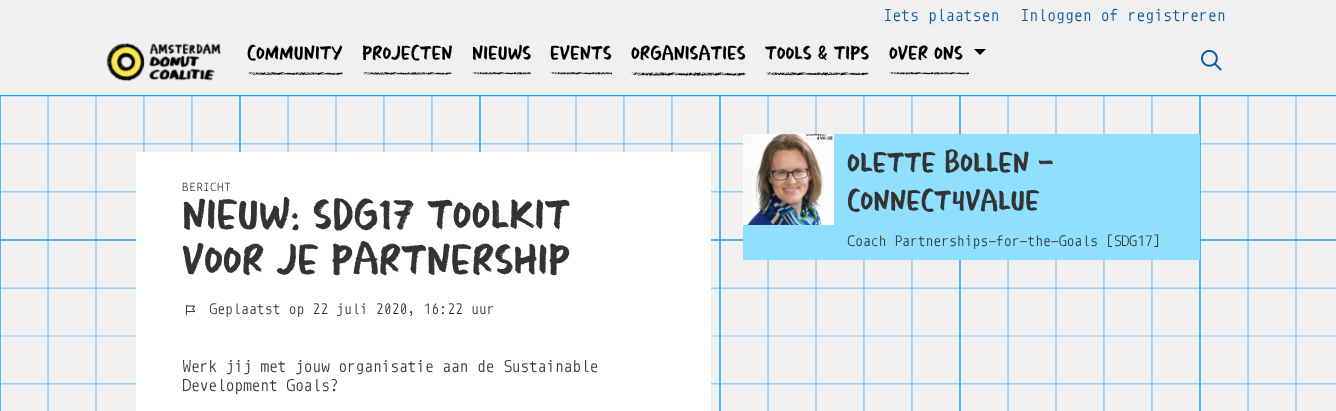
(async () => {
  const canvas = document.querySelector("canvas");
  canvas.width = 1336;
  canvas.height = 411;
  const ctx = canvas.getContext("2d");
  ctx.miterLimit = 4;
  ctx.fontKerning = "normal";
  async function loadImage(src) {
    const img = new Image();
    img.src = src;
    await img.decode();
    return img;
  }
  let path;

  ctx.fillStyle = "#f0f0f0";
  ctx.fillRect(0, 0, 1336, 411);
  ctx.drawImage(await loadImage("img/1.png"), 0, 96, 1336, 315);
  ctx.fillStyle = "#009ee2";
  ctx.fillRect(0, 95, 1336, 1);
  ctx.drawImage(await loadImage("img/2.png"), 106, 43, 115, 39);
  ctx.drawImage(await loadImage("img/3.png"), 247, 72, 96, 3);
  ctx.drawImage(await loadImage("img/4.png"), 362, 72, 90, 3);
  ctx.drawImage(await loadImage("img/5.png"), 472, 71, 59, 4);
  ctx.drawImage(await loadImage("img/6.png"), 550, 71, 62, 4);
  ctx.drawImage(await loadImage("img/7.png"), 631, 72, 115, 4);
  ctx.drawImage(await loadImage("img/8.png"), 765, 72, 104, 4);
  ctx.drawImage(await loadImage("img/9.png"), 889, 71, 80, 4);
  ctx.fillStyle = "#000000";
  path = new Path2D("M974 49H986L980 55Z");
  ctx.fill(path);
  ctx.drawImage(await loadImage("img/10.png"), 1201, 49, 21, 22);
  ctx.fillStyle = "#ffffff";
  ctx.fillRect(136, 152, 575, 259);
  ctx.drawImage(await loadImage("img/11.png"), 186, 304, 10, 12);
  ctx.fillStyle = "#8fe0ff";
  ctx.fillRect(743, 134, 457, 126);
  ctx.drawImage(await loadImage("img/12.png"), 743, 134, 91, 91);
  ctx.letterSpacing = "0.2px";
  ctx.font = "13.1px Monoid";
  ctx.fillStyle = "#0559a8";
  ctx.fillText("Iets plaatsen", 883, 21);
  ctx.fillText("Inloggen of registreren", 1020, 21);
  ctx.letterSpacing = "0px";
  ctx.font = "20.75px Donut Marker";
  ctx.fillStyle = "#000000";
  for (const [text, x, y] of [
    ["Community", 247, 60],
    ["Projecten", 362, 60],
    ["Nieuws", 472, 60],
    ["Events", 550, 60],
    ["Organisaties", 631, 60],
    ["Tools & Tips", 765, 60],
    ["Over ons", 889, 60],
  ]) {
    ctx.fillText(text, x, y);
  }
  ctx.letterSpacing = "1px";
  ctx.font = "9px Monoid";
  ctx.fillStyle = "#333333";
  ctx.fillText("BERICHT", 182, 191);
  ctx.letterSpacing = "0px";
  ctx.font = "44.75px Donut Marker";
  ctx.fillText("NIEUW: SDG17 TOOLKIT", 182, 230);
  ctx.fillText("VOOR JE PARTNERSHIP", 182, 275);
  ctx.letterSpacing = "0.2px";
  ctx.font = "11.6px Monoid";
  ctx.fillText("Geplaatst op 22 juli 2020, 16:22 uur", 209, 314);
  ctx.letterSpacing = "0px";
  ctx.font = "13px Monoid";
  ctx.fillText("Werk jij met jouw organisatie aan de Sustainable", 182, 372);
  ctx.fillText("Development Goals?", 182, 391);
  ctx.font = "30.5px Donut Marker";
  ctx.fillText("Olette Bollen -", 847, 173);
  ctx.fillText("Connect4Value", 847, 211);
  ctx.letterSpacing = "0.1px";
  ctx.font = "11.6px Monoid";
  ctx.fillText("Coach Partnerships-for-the-Goals [SDG17]", 847, 246);
})();
